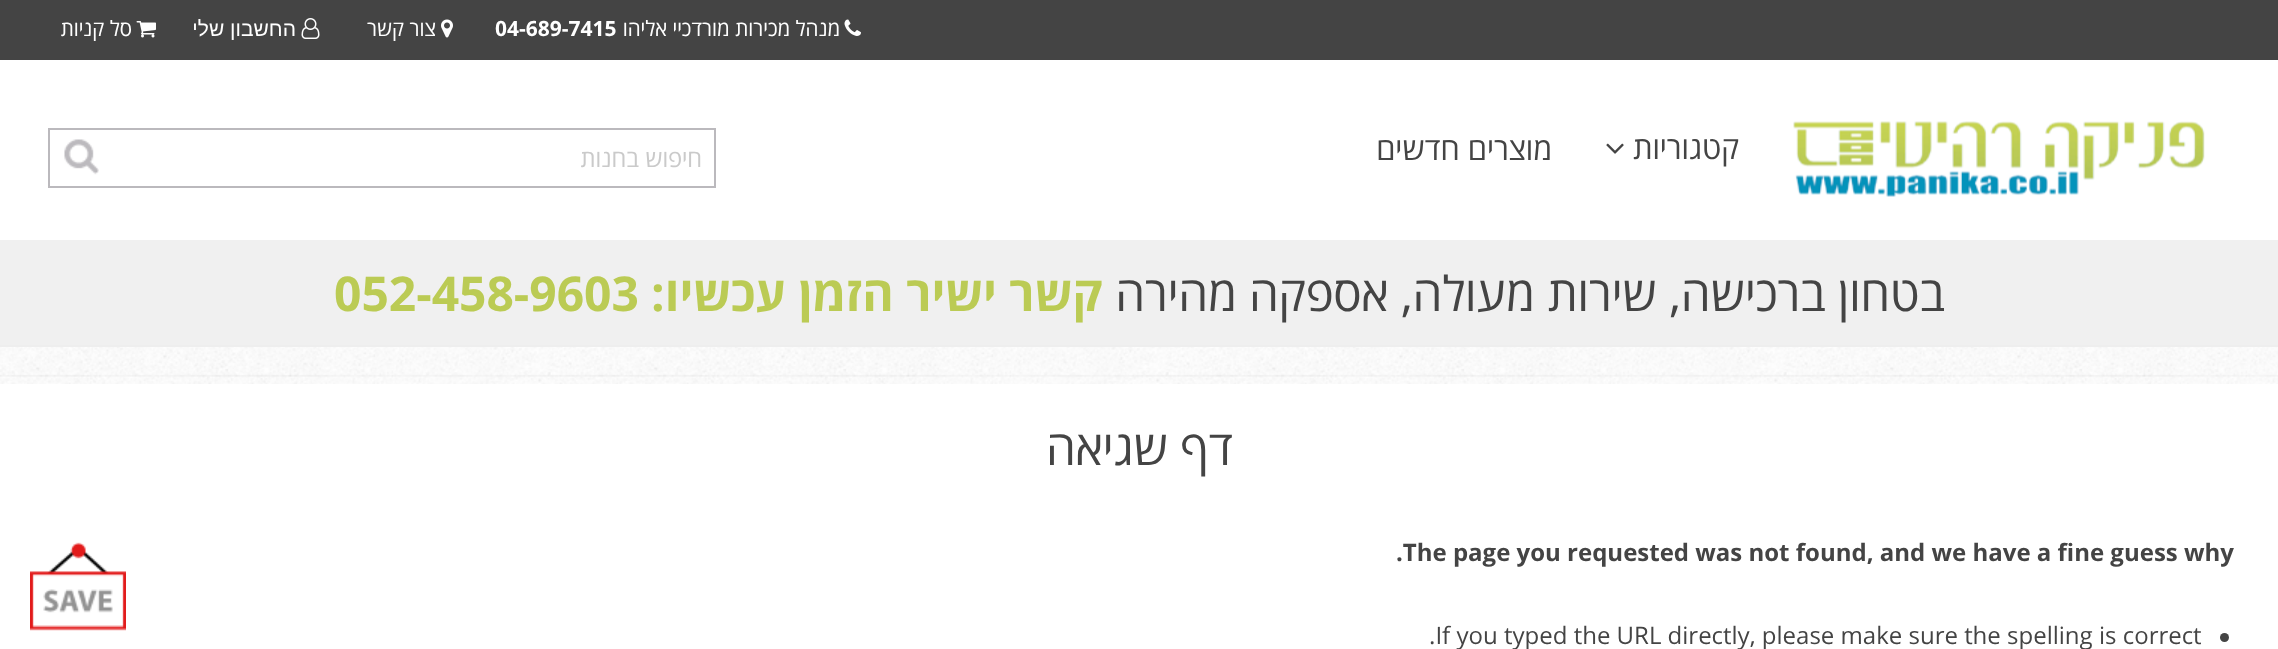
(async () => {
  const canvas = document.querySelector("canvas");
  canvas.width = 2278;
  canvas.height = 649;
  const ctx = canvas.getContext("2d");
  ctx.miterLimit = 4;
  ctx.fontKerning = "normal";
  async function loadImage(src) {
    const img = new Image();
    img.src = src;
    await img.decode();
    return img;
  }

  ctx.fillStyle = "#ffffff";
  ctx.fillRect(0, 0, 2278, 649);
  ctx.drawImage(await loadImage("img/1.png"), 0, 347, 2278, 37);
  ctx.fillStyle = "#444444";
  ctx.fillRect(0, 0, 2278, 60);
  ctx.drawImage(await loadImage("img/2.png"), 136, 21, 20, 17);
  ctx.drawImage(await loadImage("img/3.png"), 301, 18, 19, 21);
  ctx.drawImage(await loadImage("img/4.png"), 441, 19, 12, 19);
  ctx.drawImage(await loadImage("img/5.png"), 844, 19, 17, 17);
  ctx.drawImage(await loadImage("img/6.png"), 64, 139, 35, 36);
  for (const [x, y, w, h, color] of [
    [48, 128, 668, 2, "#bbb9bd"],
    [714, 128, 2, 60, "#bbb9bd"],
    [48, 186, 668, 2, "#bbb9bd"],
    [48, 128, 2, 60, "#bbb9bd"],
  ]) {
    ctx.fillStyle = color;
    ctx.fillRect(x, y, w, h);
  }
  ctx.drawImage(await loadImage("img/7.png"), 1606, 143, 18, 11);
  ctx.drawImage(await loadImage("img/8.png"), 1793, 121, 412, 76);
  ctx.fillStyle = "#f0f0f0";
  ctx.fillRect(0, 240, 2278, 105);
  ctx.fillStyle = "#eeeeee";
  ctx.fillRect(0, 345, 2278, 2);
  ctx.drawImage(await loadImage("img/9.png"), 30, 542, 96, 89);
  ctx.fillStyle = "#444444";
  ctx.beginPath();
  ctx.arc(2224.5, 637.5, 4.5, 0, Math.PI * 2);
  ctx.fill();
  ctx.direction = "rtl";
  ctx.font = "21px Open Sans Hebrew";
  ctx.fillStyle = "#ffffff";
  ctx.fillText("סל קניות", 132, 36);
  ctx.font = "21px Liberation Sans";
  ctx.fillText("החשבון שלי", 296, 36);
  ctx.font = "21px Open Sans Hebrew";
  ctx.fillText("צור קשר", 436, 36);
  ctx.direction = "ltr";
  ctx.font = "bold 21px Open Sans Hebrew";
  ctx.fillText("04-689-7415", 495, 36);
  ctx.direction = "rtl";
  ctx.font = "21px Open Sans Hebrew";
  ctx.fillText("מנהל מכירות מורדכיי אליהו", 840, 36);
  ctx.font = "24px Open Sans Hebrew";
  ctx.fillStyle = "#cacaca";
  ctx.fillText("חיפוש בחנות", 702, 167);
  ctx.font = "31.25px Open Sans Hebrew";
  ctx.fillStyle = "#444444";
  ctx.fillText("מוצרים חדשים", 1552, 160);
  ctx.fillText("קטגוריות", 1739, 159);
  ctx.direction = "ltr";
  ctx.font = "bold 48px Open Sans Hebrew";
  ctx.fillStyle = "#bbcb54";
  ctx.fillText("052-458-9603", 334, 311);
  ctx.direction = "rtl";
  ctx.fillText("קשר ישיר הזמן עכשיו:", 1103, 311);
  ctx.font = "48px Open Sans Hebrew";
  ctx.fillStyle = "#444444";
  ctx.fillText("בטחון ברכישה, שירות מעולה, אספקה מהירה", 1945, 311);
  ctx.fillText("דף שגיאה", 1233, 465);
  ctx.direction = "ltr";
  ctx.font = "bold 24px Open Sans Hebrew";
  ctx.fillText(".The page you requested was not found, and we have a fine guess why", 1396, 561);
  ctx.font = "24px Open Sans Hebrew";
  ctx.fillText(".If you typed the URL directly, please make sure the spelling is correct", 1429, 644);
})();
